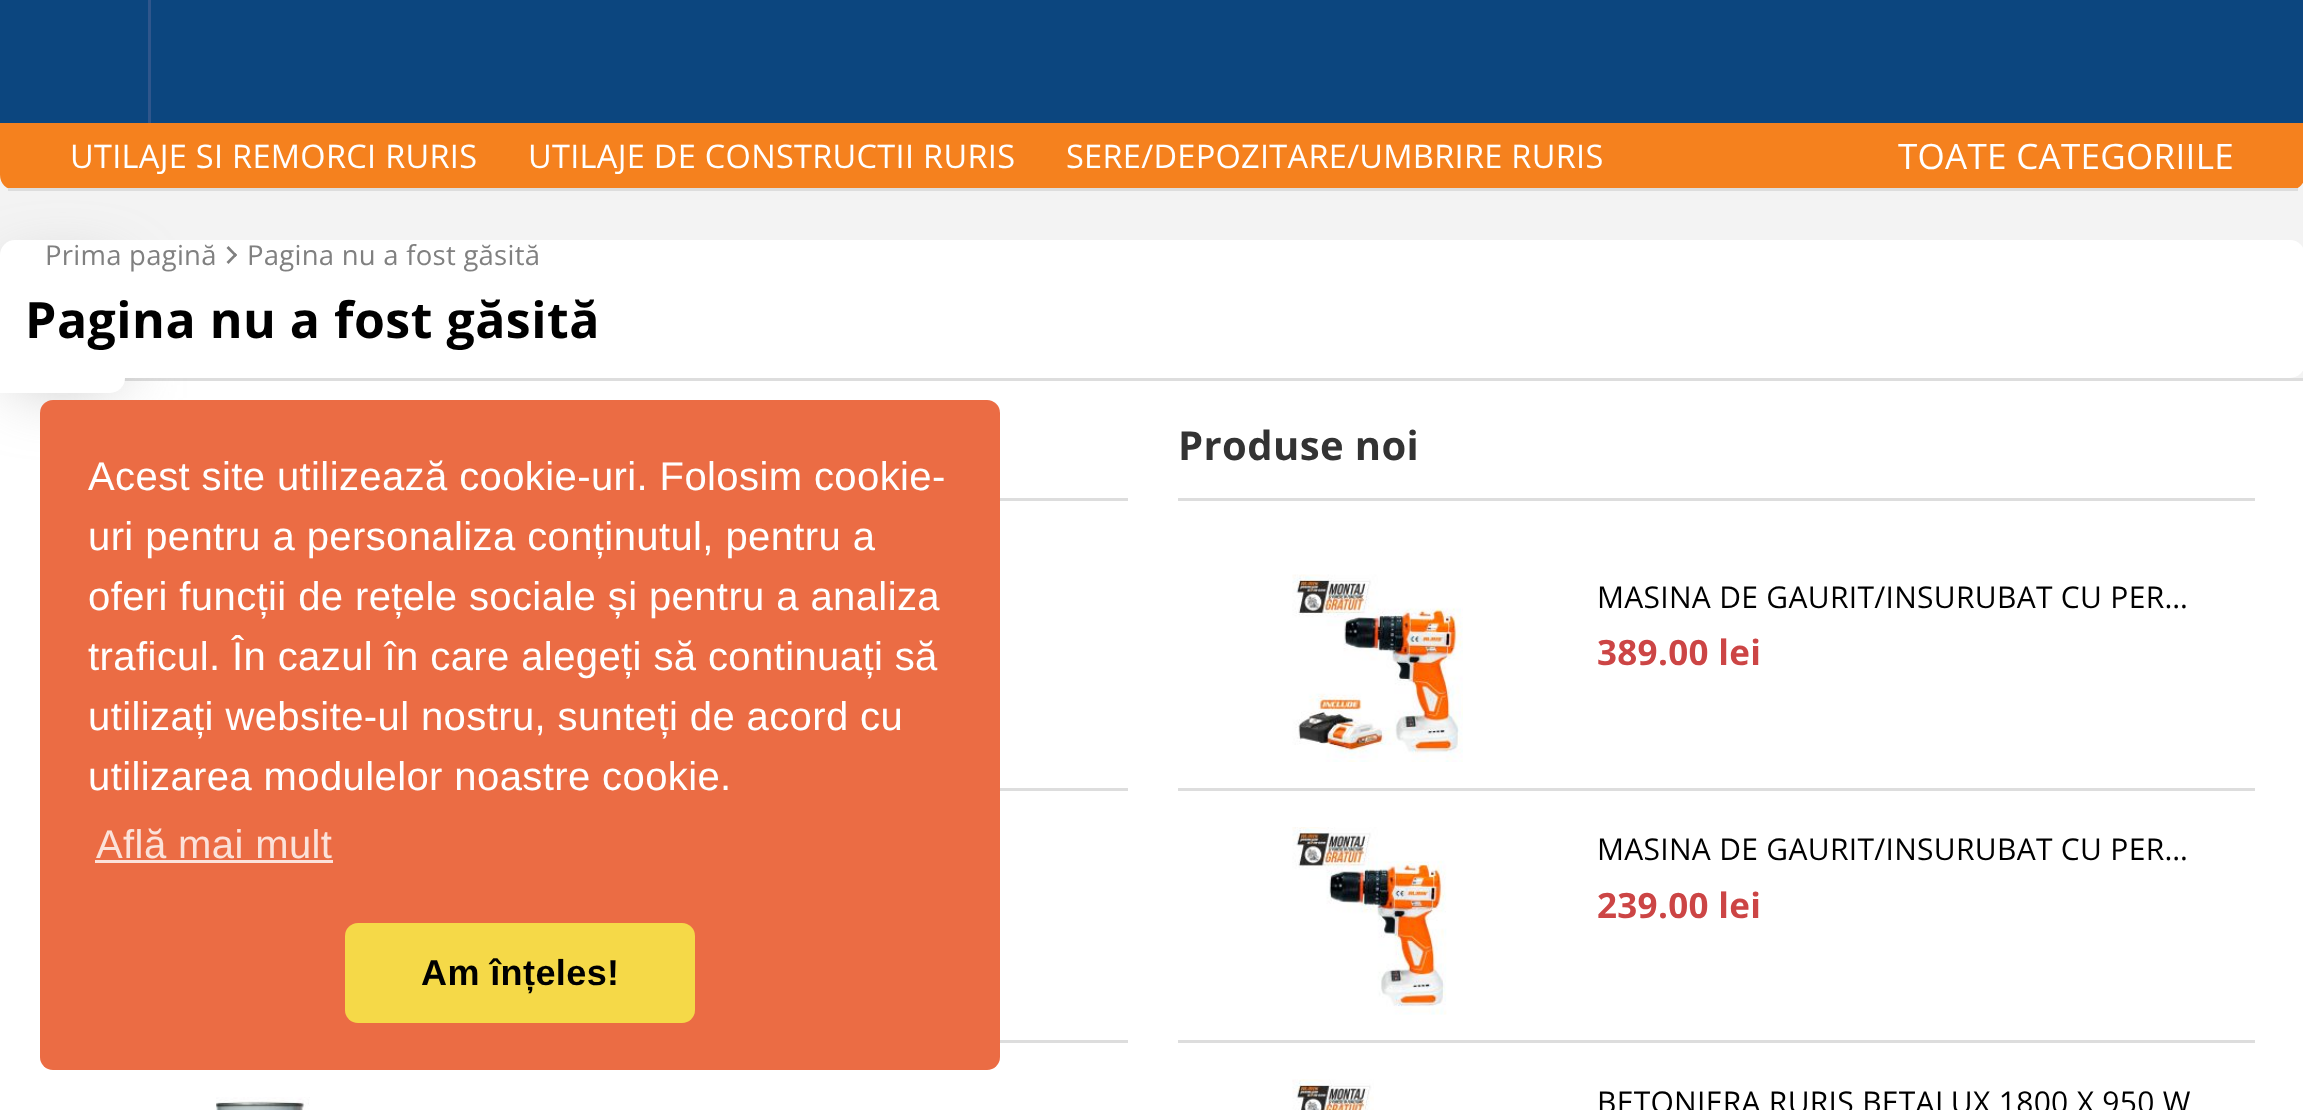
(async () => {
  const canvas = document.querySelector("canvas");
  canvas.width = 2303;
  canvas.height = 1110;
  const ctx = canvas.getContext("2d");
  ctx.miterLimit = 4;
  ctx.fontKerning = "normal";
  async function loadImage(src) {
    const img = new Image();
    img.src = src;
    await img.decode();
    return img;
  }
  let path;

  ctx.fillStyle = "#f3f3f3";
  ctx.fillRect(0, 0, 2303, 1110);
  for (const [x, y, w, h, color] of [
    [0, 0, 2303, 123, "#0c467f"],
    [148, 0, 3, 123, "#2f568c"],
    [0, 381, 2303, 729, "#ffffff"],
    [124, 378, 2179, 3, "#dddddd"],
  ]) {
    ctx.fillStyle = color;
    ctx.fillRect(x, y, w, h);
  }
  ctx.fillStyle = "#999999";
  ctx.filter = "blur(37.5px)";
  ctx.beginPath();
  ctx.rect(20, 288, 85, 85);
  ctx.fill();
  ctx.filter = "none";
  ctx.fillStyle = "#ffffff";
  ctx.beginPath();
  ctx.roundRect(0, 268, 125, 125, [0, 15, 15, 0]);
  ctx.fill();
  ctx.fillStyle = "#f5811e";
  path = new Path2D("M0 123H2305V175C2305 183.5 2298.5 190 2290 190H15C6.5 190 0 183.5 0 175Z");
  ctx.fill(path);
  ctx.fillStyle = "#dddddd";
  ctx.fillRect(8, 188, 2290, 3);
  ctx.fillStyle = "#ffffff";
  ctx.beginPath();
  ctx.roundRect(0, 240, 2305, 138, 15);
  ctx.fill();
  ctx.fillStyle = "#808080";
  path = new Path2D("M226.5 248L228.5 246L237 255L235.5 257Z");
  ctx.fill(path);
  path = new Path2D("M226.5 262L235.5 253L237 255L228.5 264Z");
  ctx.fill(path);
  for (const [x, y, w, h, color] of [
    [1000, 498, 128, 3, "#dddddd"],
    [1000, 788, 128, 3, "#dddddd"],
    [1000, 1040, 128, 3, "#dddddd"],
  ]) {
    ctx.fillStyle = color;
    ctx.fillRect(x, y, w, h);
  }
  ctx.drawImage(await loadImage("img/1.png"), 216, 1097, 94, 13);
  ctx.fillRect(1178, 498, 1077, 3);
  ctx.fillRect(1178, 788, 1077, 3);
  ctx.drawImage(await loadImage("img/2.png"), 1292, 574, 171, 188);
  ctx.fillRect(1178, 1040, 1077, 3);
  ctx.drawImage(await loadImage("img/3.png"), 1292, 827, 155, 188);
  ctx.drawImage(await loadImage("img/4.png"), 1292, 1079, 82, 31);
  ctx.fillStyle = "#eb6c44";
  ctx.beginPath();
  ctx.roundRect(40, 400, 960, 670, 13);
  ctx.fill();
  ctx.fillStyle = "#fbe2da";
  ctx.fillRect(95, 860, 238, 3);
  ctx.fillStyle = "#f5d948";
  ctx.beginPath();
  ctx.roundRect(345, 923, 350, 100, 13);
  ctx.fill();
  ctx.letterSpacing = "0.3px";
  ctx.font = "32.5px Open Sans";
  ctx.fillStyle = "#ffffff";
  for (const [text, x, y] of [
    ["UTILAJE SI REMORCI RURIS", 70, 168],
    ["UTILAJE DE CONSTRUCTII RURIS", 528, 168],
    ["SERE/DEPOZITARE/UMBRIRE RURIS", 1066, 168],
  ]) {
    ctx.fillText(text, x, y);
  }
  ctx.font = "35px Open Sans";
  ctx.fillText("TOATE CATEGORIILE", 1898, 169);
  ctx.letterSpacing = "0.25px";
  ctx.font = "27.5px Open Sans";
  ctx.fillStyle = "#808080";
  ctx.fillText("Prima pagină", 45, 265);
  ctx.fillText("Pagina nu a fost găsită", 247, 265);
  ctx.letterSpacing = "0.5px";
  ctx.font = "bold 50px Open Sans";
  ctx.fillStyle = "#000000";
  ctx.fillText("Pagina nu a fost găsită", 25, 338);
  ctx.letterSpacing = "0.4px";
  ctx.font = "bold 40px Open Sans";
  ctx.fillStyle = "#333333";
  ctx.fillText("Produse noi", 1178, 460);
  ctx.letterSpacing = "0.3px";
  ctx.font = "30px Open Sans";
  ctx.fillStyle = "#000000";
  ctx.fillText("MASINA DE GAURIT/INSURUBAT CU PER…", 1597, 608);
  ctx.font = "bold 35px Open Sans";
  ctx.fillStyle = "#cc4545";
  ctx.fillText("389.00 lei", 1597, 665);
  ctx.font = "30px Open Sans";
  ctx.fillStyle = "#000000";
  ctx.fillText("MASINA DE GAURIT/INSURUBAT CU PER…", 1597, 860);
  ctx.font = "bold 35px Open Sans";
  ctx.fillStyle = "#cc4545";
  ctx.fillText("239.00 lei", 1597, 918);
  ctx.font = "30px Open Sans";
  ctx.fillStyle = "#000000";
  ctx.fillText("BETONIERA RURIS BETALUX 1800 X 950 W", 1597, 1113);
  ctx.letterSpacing = "0.4px";
  ctx.font = "40px Liberation Sans";
  ctx.fillStyle = "#ffffff";
  for (const [text, x, y] of [
    ["Acest site utilizează cookie-uri. Folosim cookie-", 88, 490],
    ["uri pentru a personaliza conținutul, pentru a", 88, 550],
    ["oferi funcții de rețele sociale și pentru a analiza", 88, 610],
    ["traficul. În cazul în care alegeți să continuați să", 88, 670],
    ["utilizați website-ul nostru, sunteți de acord cu", 88, 730],
    ["utilizarea modulelor noastre cookie.", 88, 790],
  ]) {
    ctx.fillText(text, x, y);
  }
  ctx.fillStyle = "#fbe2da";
  ctx.fillText("Află mai mult", 96, 858);
  ctx.font = "bold 36px Liberation Sans";
  ctx.fillStyle = "#000000";
  ctx.fillText("Am înțeles!", 421, 985);
})();
